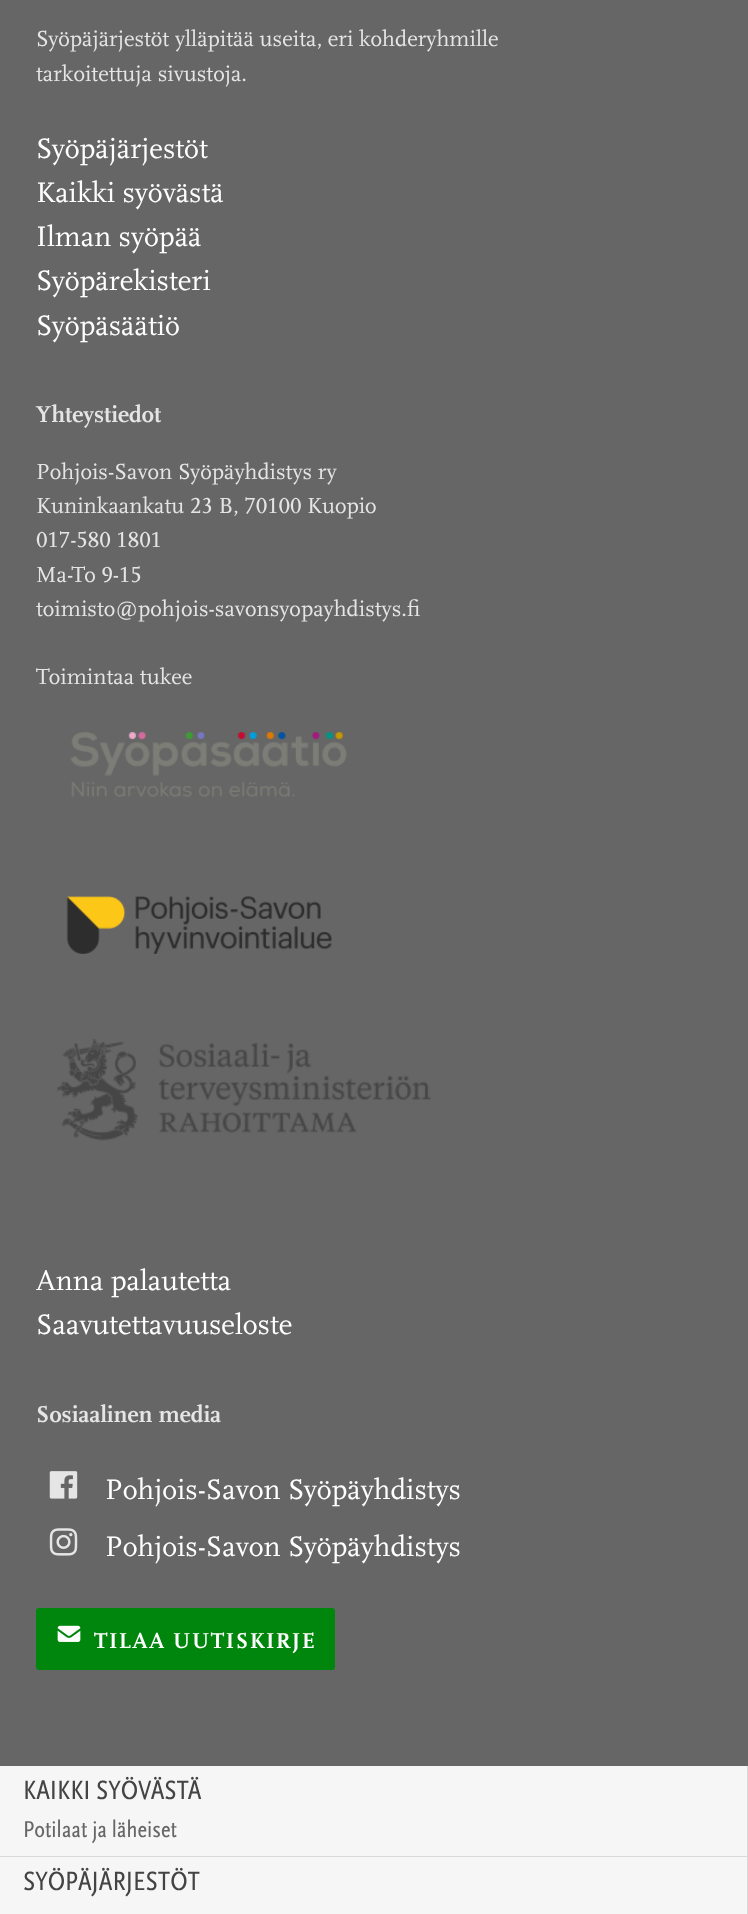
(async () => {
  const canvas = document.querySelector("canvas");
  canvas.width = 748;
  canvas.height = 1914;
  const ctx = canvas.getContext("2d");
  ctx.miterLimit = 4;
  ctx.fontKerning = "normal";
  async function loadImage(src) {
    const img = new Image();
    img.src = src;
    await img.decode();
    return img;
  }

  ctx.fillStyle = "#666666";
  ctx.fillRect(0, 0, 748, 1914);
  ctx.drawImage(await loadImage("img/1.png"), 70, 732, 277, 65);
  ctx.drawImage(await loadImage("img/2.png"), 66, 896, 266, 58);
  ctx.drawImage(await loadImage("img/3.png"), 57, 1039, 374, 102);
  ctx.drawImage(await loadImage("img/4.png"), 49, 1471, 29, 28);
  ctx.drawImage(await loadImage("img/5.png"), 49, 1528, 29, 28);
  ctx.fillStyle = "#00860c";
  ctx.beginPath();
  ctx.roundRect(36, 1608, 299, 62, 3);
  ctx.fill();
  ctx.drawImage(await loadImage("img/6.png"), 57, 1625, 24, 17);
  for (const [x, y, w, h, color] of [
    [0, 1766, 747, 90, "#f6f6f6"],
    [747, 1766, 1, 148, "#d8d8d8"],
    [0, 1856, 748, 1, "#d8d8d8"],
    [0, 1857, 747, 57, "#f6f6f6"],
  ]) {
    ctx.fillStyle = color;
    ctx.fillRect(x, y, w, h);
  }
  ctx.font = "22.8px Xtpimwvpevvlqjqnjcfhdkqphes";
  ctx.fillStyle = "#e5e5e5";
  ctx.fillText("Syöpäjärjestöt ylläpitää useita, eri kohderyhmille", 36, 46);
  ctx.fillText("tarkoitettuja sivustoja.", 36, 81);
  ctx.font = "29.4px Xtpimwvpevvlqjqnjcfhdkqphes";
  ctx.fillStyle = "#ffffff";
  for (const [text, x, y] of [
    ["Syöpäjärjestöt", 36, 158],
    ["Kaikki syövästä", 36, 202],
    ["Ilman syöpää", 36, 246],
    ["Syöpärekisteri", 36, 290],
    ["Syöpäsäätiö", 36, 335],
  ]) {
    ctx.fillText(text, x, y);
  }
  ctx.font = "bold 24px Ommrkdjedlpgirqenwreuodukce";
  ctx.fillStyle = "#e5e5e5";
  ctx.fillText("Yhteystiedot", 36, 422);
  ctx.font = "22.8px Xtpimwvpevvlqjqnjcfhdkqphes";
  for (const [text, x, y] of [
    ["Pohjois-Savon Syöpäyhdistys ry", 36, 479],
    ["Kuninkaankatu 23 B, 70100 Kuopio", 36, 513],
    ["017-580 1801", 36, 547],
    ["Ma-To 9-15", 36, 582],
    ["toimisto@pohjois-savonsyopayhdistys.fi", 36, 616],
    ["Toimintaa tukee", 36, 684],
  ]) {
    ctx.fillText(text, x, y);
  }
  ctx.font = "29.4px Xtpimwvpevvlqjqnjcfhdkqphes";
  ctx.fillStyle = "#ffffff";
  ctx.fillText("Anna palautetta", 36, 1290);
  ctx.fillText("Saavutettavuuseloste", 36, 1334);
  ctx.font = "bold 24px Ommrkdjedlpgirqenwreuodukce";
  ctx.fillStyle = "#e5e5e5";
  ctx.fillText("Sosiaalinen media", 36, 1422);
  ctx.font = "29.4px Xtpimwvpevvlqjqnjcfhdkqphes";
  ctx.fillStyle = "#ffffff";
  ctx.fillText("Pohjois-Savon Syöpäyhdistys", 105, 1499);
  ctx.fillText("Pohjois-Savon Syöpäyhdistys", 105, 1556);
  ctx.letterSpacing = "1.5px";
  ctx.font = "bold 22.5px Ommrkdjedlpgirqenwreuodukce";
  ctx.fillText("TILAA UUTISKIRJE", 94, 1648);
  ctx.letterSpacing = "0px";
  ctx.font = "27.5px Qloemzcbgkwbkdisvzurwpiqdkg";
  ctx.fillStyle = "#444444";
  ctx.fillText("KAIKKI SYÖVÄSTÄ", 23, 1799);
  ctx.font = "24px Qloemzcbgkwbkdisvzurwpiqdkg";
  ctx.fillStyle = "#666666";
  ctx.fillText("Potilaat ja läheiset", 23, 1837);
  ctx.font = "27.5px Qloemzcbgkwbkdisvzurwpiqdkg";
  ctx.fillStyle = "#444444";
  ctx.fillText("SYÖPÄJÄRJESTÖT", 23, 1890);
})();
